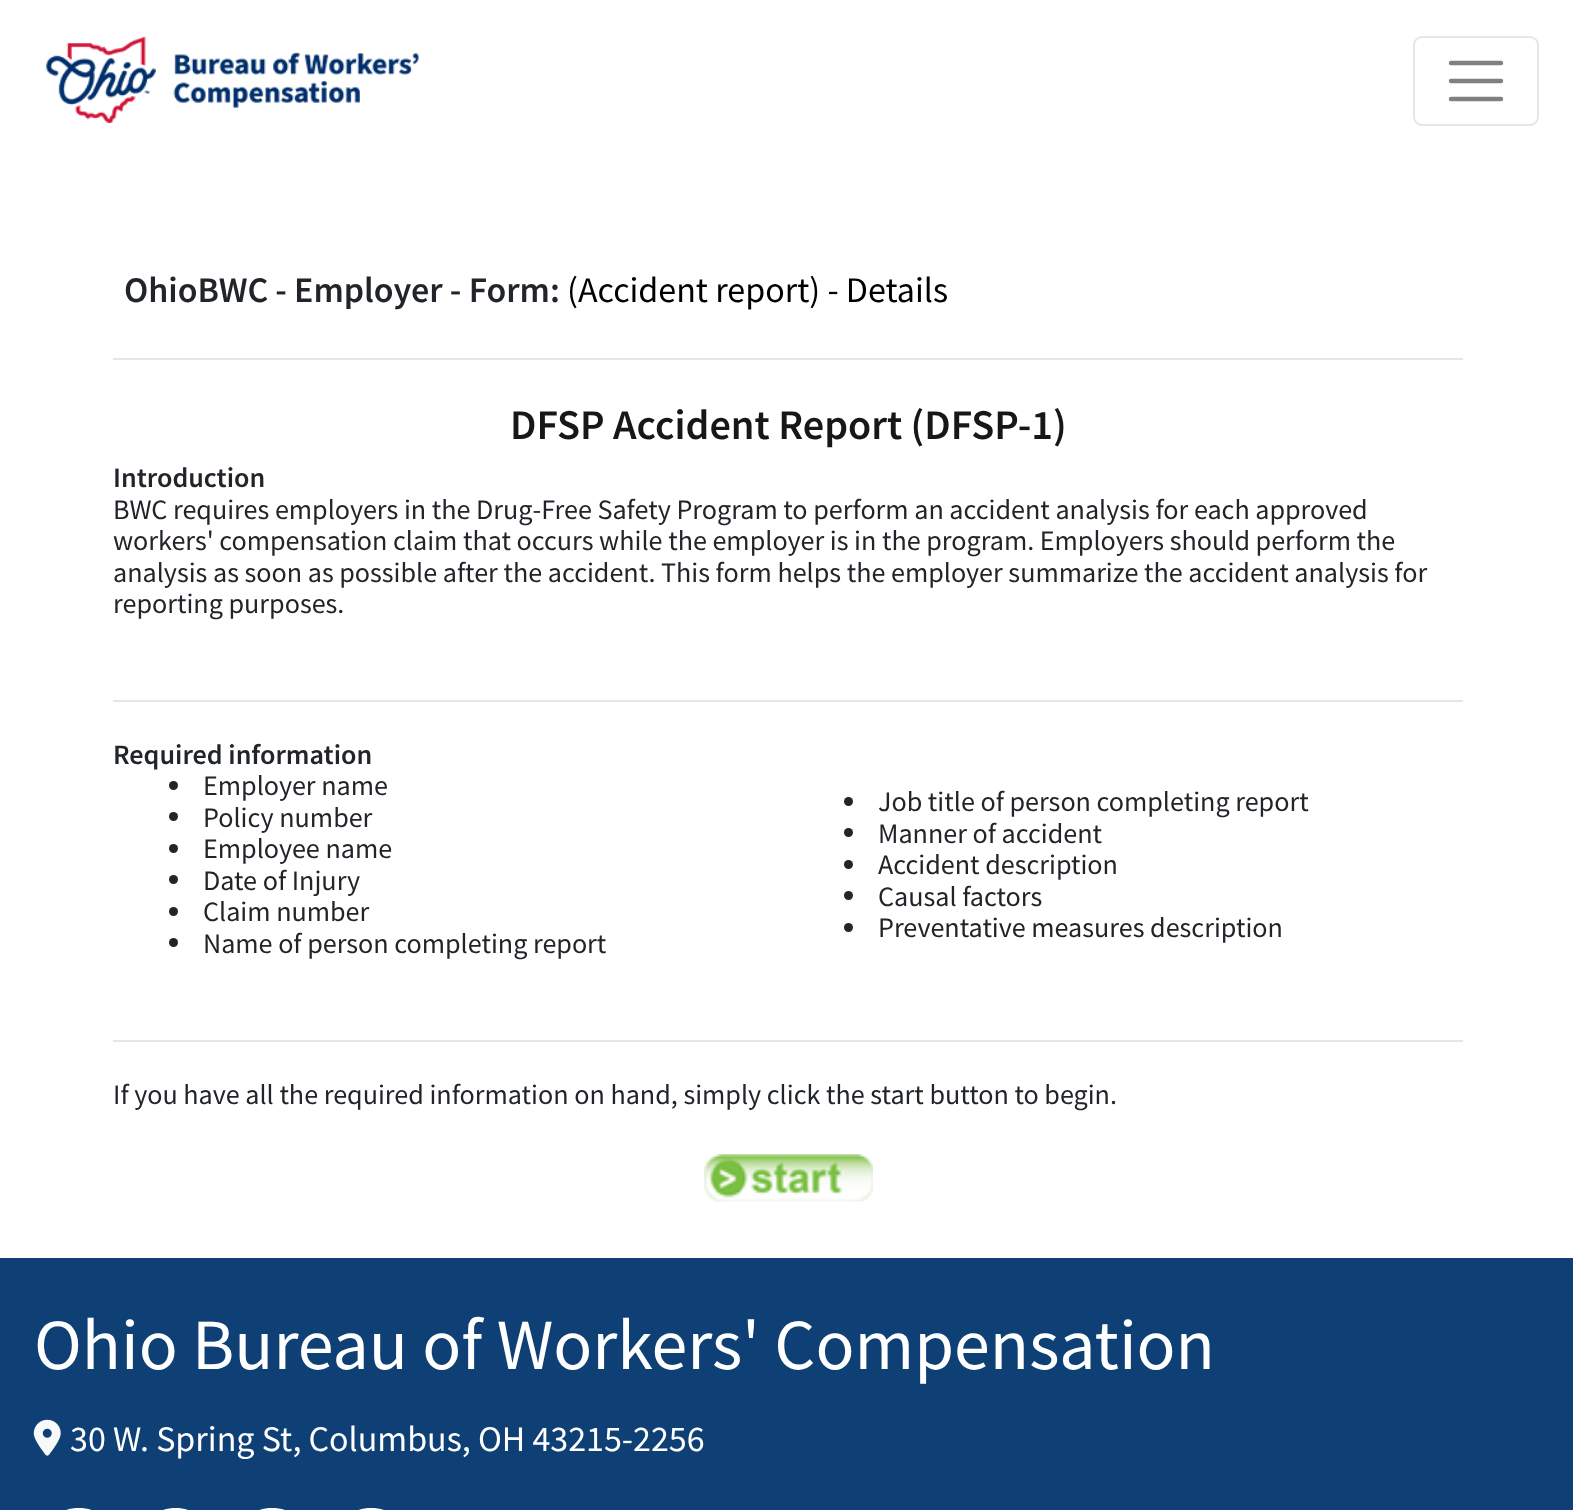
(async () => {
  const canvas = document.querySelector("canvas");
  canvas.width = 1573;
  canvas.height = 1510;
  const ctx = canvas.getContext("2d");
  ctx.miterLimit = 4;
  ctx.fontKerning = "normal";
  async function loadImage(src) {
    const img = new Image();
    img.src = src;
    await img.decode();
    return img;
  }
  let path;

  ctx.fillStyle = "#ffffff";
  ctx.fillRect(0, 0, 1573, 1510);
  ctx.drawImage(await loadImage("img/1.png"), 46, 36, 373, 88);
  ctx.beginPath();
  ctx.roundRect(1414, 37, 124, 88, 8);
  ctx.strokeStyle = "#e6e6e6";
  ctx.lineWidth = 2;
  ctx.stroke();
  path = new Path2D("M1451 63H1501M1451 81H1501M1451 99H1501");
  ctx.strokeStyle = "#808080";
  ctx.lineWidth = 4.5;
  ctx.lineCap = "round";
  ctx.stroke(path);
  ctx.fillStyle = "#e6e6e6";
  ctx.fillRect(113, 358, 1350, 2);
  ctx.fillRect(113, 700, 1350, 2);
  ctx.fillStyle = "#212529";
  ctx.beginPath();
  ctx.arc(173.5, 785.5, 4.5, 0, Math.PI * 2);
  ctx.fill();
  ctx.beginPath();
  ctx.arc(173.5, 816.5, 4.5, 0, Math.PI * 2);
  ctx.fill();
  ctx.beginPath();
  ctx.arc(173.5, 848.5, 4.5, 0, Math.PI * 2);
  ctx.fill();
  ctx.beginPath();
  ctx.arc(173.5, 879.5, 4.5, 0, Math.PI * 2);
  ctx.fill();
  ctx.beginPath();
  ctx.arc(173.5, 911.5, 4.5, 0, Math.PI * 2);
  ctx.fill();
  ctx.beginPath();
  ctx.arc(173.5, 942.5, 4.5, 0, Math.PI * 2);
  ctx.fill();
  ctx.beginPath();
  ctx.arc(848.5, 801.5, 4.5, 0, Math.PI * 2);
  ctx.fill();
  ctx.beginPath();
  ctx.arc(848.5, 832.5, 4.5, 0, Math.PI * 2);
  ctx.fill();
  ctx.beginPath();
  ctx.arc(848.5, 864.5, 4.5, 0, Math.PI * 2);
  ctx.fill();
  ctx.beginPath();
  ctx.arc(848.5, 895.5, 4.5, 0, Math.PI * 2);
  ctx.fill();
  ctx.beginPath();
  ctx.arc(848.5, 927.5, 4.5, 0, Math.PI * 2);
  ctx.fill();
  ctx.fillStyle = "#e6e6e6";
  ctx.fillRect(113, 1040, 1350, 2);
  ctx.drawImage(await loadImage("img/2.png"), 704, 1154, 169, 48);
  ctx.fillStyle = "#0e3f75";
  ctx.fillRect(0, 1258, 1573, 252);
  ctx.drawImage(await loadImage("img/3.png"), 33, 1419, 28, 37);
  ctx.fillStyle = "#ffffff";
  path = new Path2D("M79 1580C113 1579 128 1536 101 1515C94 1510 87 1508 79 1508C71 1508 63 1510 57 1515C30 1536 45 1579 79 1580Z");
  ctx.fill(path);
  path = new Path2D("M176 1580C210 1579 225 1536 197 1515C191 1510 183 1508 176 1508C168 1508 160 1510 154 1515C126 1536 141 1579 176 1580Z");
  ctx.fill(path);
  path = new Path2D("M272 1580C306 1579 321 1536 294 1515C288 1510 280 1508 272 1508C264 1508 257 1510 250 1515C223 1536 238 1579 272 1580Z");
  ctx.fill(path);
  path = new Path2D("M371 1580C405 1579 420 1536 393 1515C387 1510 379 1508 371 1508C363 1508 356 1510 349 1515C322 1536 337 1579 371 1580Z");
  ctx.fill(path);
  ctx.font = "600 36px Source Sans Pro";
  ctx.fillStyle = "#212529";
  ctx.fillText("OhioBWC - Employer - Form:", 124, 302);
  ctx.font = "36px Source Sans Pro";
  ctx.fillStyle = "#000000";
  ctx.fillText("(Accident report) - Details", 567, 302);
  ctx.font = "600 42.25px Source Sans Pro";
  ctx.fillStyle = "#171717";
  ctx.fillText("DFSP Accident Report (DFSP-1)", 510, 439);
  ctx.font = "600 28.1px Source Sans Pro";
  ctx.fillStyle = "#212529";
  ctx.fillText("Introduction", 113, 487);
  ctx.font = "28.1px Source Sans Pro";
  for (const [text, x, y] of [
    ["BWC requires employers in the Drug-Free Safety Program to perform an accident analysis for each approved", 113, 519],
    ["workers' compensation claim that occurs while the employer is in the program. Employers should perform the", 113, 550],
    ["analysis as soon as possible after the accident. This form helps the employer summarize the accident analysis for", 113, 582],
    ["reporting purposes.", 113, 613],
  ]) {
    ctx.fillText(text, x, y);
  }
  ctx.font = "600 28.1px Source Sans Pro";
  ctx.fillText("Required information", 113, 764);
  ctx.font = "28.1px Source Sans Pro";
  for (const [text, x, y] of [
    ["Employer name", 203, 795],
    ["Policy number", 203, 827],
    ["Employee name", 203, 858],
    ["Date of Injury", 203, 890],
    ["Claim number", 203, 921],
    ["Name of person completing report", 203, 953],
    ["Job title of person completing report", 878, 811],
    ["Manner of accident", 878, 843],
    ["Accident description", 878, 874],
    ["Causal factors", 878, 906],
    ["Preventative measures description", 878, 937],
    ["If you have all the required information on hand, simply click the start button to begin.", 113, 1104],
  ]) {
    ctx.fillText(text, x, y);
  }
  ctx.font = "72px Source Sans Pro";
  ctx.fillStyle = "#ffffff";
  ctx.fillText("Ohio Bureau of Workers' Compensation", 34, 1369);
  ctx.font = "36px Source Sans Pro";
  ctx.fillText("30 W. Spring St, Columbus, OH 43215-2256", 70, 1451);
})();
